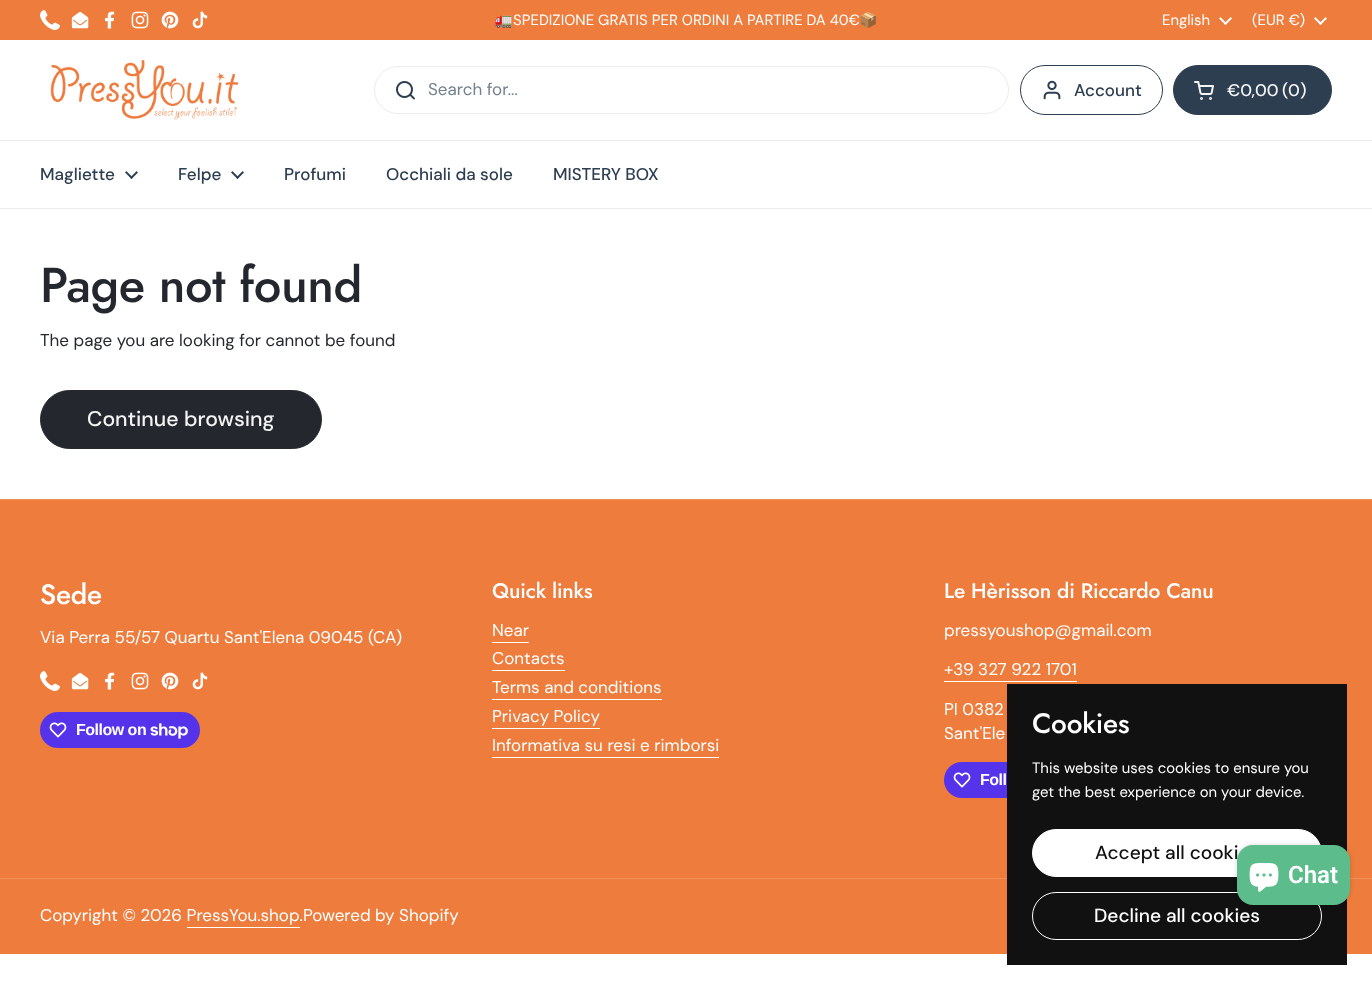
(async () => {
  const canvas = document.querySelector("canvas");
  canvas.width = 1372;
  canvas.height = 990;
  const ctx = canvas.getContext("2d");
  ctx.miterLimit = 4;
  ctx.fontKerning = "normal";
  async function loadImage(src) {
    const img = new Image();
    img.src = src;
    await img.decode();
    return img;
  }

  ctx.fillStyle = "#ffffff";
  ctx.fillRect(0, 0, 1372, 990);
  ctx.fillStyle = "#ee7c3d";
  ctx.fillRect(0, 0, 1372, 40);
  ctx.drawImage(await loadImage("img/1.png"), 40, 10, 20, 20);
  ctx.drawImage(await loadImage("img/2.png"), 71, 11, 18, 18);
  ctx.drawImage(await loadImage("img/3.png"), 105, 11, 10, 18);
  ctx.drawImage(await loadImage("img/4.png"), 131, 11, 18, 18);
  ctx.drawImage(await loadImage("img/5.png"), 161, 11, 18, 18);
  ctx.drawImage(await loadImage("img/6.png"), 192, 11, 16, 18);
  ctx.drawImage(await loadImage("img/7.png"), 1219, 17, 13, 8);
  ctx.drawImage(await loadImage("img/7.png"), 1314, 17, 13, 8);
  ctx.fillStyle = "#eaecee";
  ctx.fillRect(0, 140, 1372, 1);
  ctx.drawImage(await loadImage("img/8.png"), 50, 60, 189, 60);
  ctx.beginPath();
  ctx.roundRect(374.5, 66.5, 634, 47, 23.5);
  ctx.strokeStyle = "#eaecee";
  ctx.stroke();
  ctx.drawImage(await loadImage("img/9.png"), 396, 81, 19, 19);
  ctx.beginPath();
  ctx.roundRect(1020.5, 65.5, 142, 49, 24.5);
  ctx.strokeStyle = "#2d3e50";
  ctx.stroke();
  ctx.drawImage(await loadImage("img/10.png"), 1043, 80, 18, 20);
  ctx.fillStyle = "#2d3e50";
  ctx.beginPath();
  ctx.roundRect(1173.5, 65.5, 158, 49, 24.5);
  ctx.fill();
  ctx.stroke();
  ctx.drawImage(await loadImage("img/11.png"), 1194, 81, 20, 19);
  ctx.fillStyle = "#eaecee";
  ctx.fillRect(0, 208, 1372, 1);
  ctx.drawImage(await loadImage("img/12.png"), 125, 171, 13, 8);
  ctx.drawImage(await loadImage("img/12.png"), 231, 171, 13, 8);
  ctx.fillStyle = "#24282e";
  ctx.beginPath();
  ctx.roundRect(40.5, 390.5, 281, 58, 29);
  ctx.fill();
  ctx.strokeStyle = "#24282e";
  ctx.stroke();
  ctx.fillStyle = "#ee7c3d";
  ctx.fillRect(0, 500, 1372, 454);
  ctx.fillStyle = "#f1905a";
  ctx.fillRect(0, 499, 1372, 1);
  ctx.drawImage(await loadImage("img/1.png"), 40, 671, 20, 20);
  ctx.drawImage(await loadImage("img/2.png"), 71, 672, 18, 18);
  ctx.drawImage(await loadImage("img/3.png"), 105, 672, 10, 18);
  ctx.drawImage(await loadImage("img/4.png"), 131, 672, 18, 18);
  ctx.drawImage(await loadImage("img/5.png"), 161, 672, 18, 18);
  ctx.drawImage(await loadImage("img/6.png"), 192, 672, 16, 18);
  ctx.fillStyle = "#5433eb";
  ctx.beginPath();
  ctx.roundRect(40, 712, 160, 36, 18);
  ctx.fill();
  ctx.drawImage(await loadImage("img/13.png"), 49, 722, 18, 16);
  ctx.drawImage(await loadImage("img/14.png"), 150, 723, 38, 16);
  for (const [x, y, w, h, color] of [
    [492, 642, 37, 1, "#ffffff"],
    [492, 670, 73, 1, "#ffffff"],
    [492, 699, 170, 1, "#ffffff"],
    [492, 728, 108, 1, "#ffffff"],
    [492, 757, 227, 1, "#ffffff"],
    [944, 681, 133, 1, "#ffffff"],
  ]) {
    ctx.fillStyle = color;
    ctx.fillRect(x, y, w, h);
  }
  ctx.fillStyle = "#5433eb";
  ctx.beginPath();
  ctx.roundRect(944, 762, 160, 36, 18);
  ctx.fill();
  ctx.drawImage(await loadImage("img/13.png"), 953, 772, 18, 16);
  for (const [x, y, w, h, color] of [
    [0, 878, 1372, 1, "#f1905a"],
    [187, 927, 113, 1, "#ffffff"],
    [1007, 684, 340, 281, "#111111"],
  ]) {
    ctx.fillStyle = color;
    ctx.fillRect(x, y, w, h);
  }
  ctx.fillStyle = "#ffffff";
  ctx.beginPath();
  ctx.roundRect(1032.5, 829.5, 289, 47, 23.5);
  ctx.fill();
  ctx.strokeStyle = "#ffffff";
  ctx.stroke();
  ctx.beginPath();
  ctx.roundRect(1032.5, 892.5, 289, 47, 23.5);
  ctx.stroke();
  ctx.fillStyle = "rgba(0, 0, 0, 0.15)";
  ctx.filter = "blur(2.5px)";
  ctx.beginPath();
  ctx.roundRect(1237, 845, 113, 60, 16);
  ctx.fill();
  ctx.filter = "none";
  ctx.font = "14.9px Noto Color Emoji";
  ctx.fillStyle = "#ffffff";
  ctx.fillText("🚛", 494, 25);
  ctx.font = "14.9px DM Sans";
  ctx.fillText("SPEDIZIONE GRATIS PER ORDINI A PARTIRE DA 40€", 513, 25);
  ctx.font = "14.9px Noto Color Emoji";
  ctx.fillText("📦", 859, 25);
  ctx.font = "14.9px 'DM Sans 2'";
  ctx.fillText("English", 1162, 25);
  ctx.fillText("(EUR €)", 1252, 25);
  ctx.font = "17px 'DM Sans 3'";
  ctx.fillStyle = "#74808c";
  ctx.fillText("Search for...", 428, 95);
  ctx.font = "500 17px 'DM Sans 2'";
  ctx.fillStyle = "#2d3e50";
  ctx.fillText("Account", 1074, 96);
  ctx.fillStyle = "#f4f4f4";
  for (const [text, x, y] of [
    ["€0,00", 1227, 96],
    ["(0", 1282, 96],
    [")", 1300, 96],
  ]) {
    ctx.fillText(text, x, y);
  }
  ctx.fillStyle = "#2d3e50";
  for (const [text, x, y] of [
    ["Magliette", 40, 180],
    ["Felpe", 178, 180],
    ["Profumi", 284, 180],
    ["Occhiali da sole", 386, 180],
    ["MISTERY BOX", 553, 180],
  ]) {
    ctx.fillText(text, x, y);
  }
  ctx.letterSpacing = "-0.5px";
  ctx.font = "500 49px Jost";
  ctx.fillStyle = "#24282e";
  ctx.fillText("Page not found", 40, 302);
  ctx.letterSpacing = "0px";
  ctx.font = "17px 'DM Sans 3'";
  ctx.fillText("The page you are looking for cannot be found", 40, 346);
  ctx.font = "500 21.25px DM Sans";
  ctx.fillStyle = "#f4f4f4";
  ctx.fillText("Continue browsing", 87, 426);
  ctx.letterSpacing = "-0.25px";
  ctx.font = "500 28px Jost";
  ctx.fillStyle = "#ffffff";
  ctx.fillText("Sede", 40, 604);
  ctx.letterSpacing = "0px";
  ctx.font = "17px 'DM Sans 3'";
  ctx.fillText("Via Perra 55/57 Quartu Sant'Elena 09045 (CA)", 40, 643);
  ctx.letterSpacing = "-0.5px";
  ctx.font = "bold 16px Liberation Sans";
  ctx.fillText("Follow on", 76, 735);
  ctx.letterSpacing = "-0.2px";
  ctx.font = "500 21px Jost";
  ctx.fillText("Quick links", 492, 598);
  ctx.letterSpacing = "0px";
  ctx.font = "17px 'DM Sans 3'";
  for (const [text, x, y] of [
    ["Near", 492, 636],
    ["Contacts", 492, 664],
    ["Terms and conditions", 492, 693],
    ["Privacy Policy", 492, 722],
    ["Informativa su resi e rimborsi", 492, 751],
  ]) {
    ctx.fillText(text, x, y);
  }
  ctx.letterSpacing = "-0.2px";
  ctx.font = "500 21px Jost";
  ctx.fillText("Le Hèrisson di Riccardo Canu", 944, 598);
  ctx.letterSpacing = "0px";
  ctx.font = "17px 'DM Sans 3'";
  for (const [text, x, y] of [
    ["pressyoushop@gmail.com", 944, 636],
    ["+39 327 922 1701", 944, 675],
    ["PI 0382", 944, 715],
    ["Sant'Ele", 944, 739],
  ]) {
    ctx.fillText(text, x, y);
  }
  ctx.letterSpacing = "-0.5px";
  ctx.font = "bold 16px Liberation Sans";
  ctx.fillText("Foll", 980, 785);
  ctx.letterSpacing = "0px";
  ctx.font = "17px 'DM Sans 3'";
  ctx.fillText("Copyright © 2026 PressYou.shop.Powered by Shopify", 40, 921);
  ctx.letterSpacing = "-0.25px";
  ctx.font = "500 28px Jost";
  ctx.fillText("Cookies", 1032, 733);
  ctx.letterSpacing = "0px";
  ctx.font = "14.9px 'DM Sans 2'";
  ctx.fillText("This website uses cookies to ensure you", 1032, 773);
  ctx.fillText("get the best experience on your device.", 1032, 797);
  ctx.font = "500 19.1px 'DM Sans 3'";
  ctx.fillStyle = "#111111";
  ctx.fillText("Accept all cooki", 1095, 859);
  ctx.fillStyle = "#ffffff";
  ctx.fillText("Decline all cookies", 1094, 922);
  ctx.fillStyle = "#5dbc8b";
  ctx.beginPath();
  ctx.roundRect(1237, 845, 113, 60, 16);
  ctx.fill();
  ctx.drawImage(await loadImage("img/15.png"), 1249, 863, 30, 29);
  ctx.font = "600 24px Roboto";
  ctx.fillStyle = "#ffffff";
  ctx.fillText("Chat", 1288, 883);
})();
